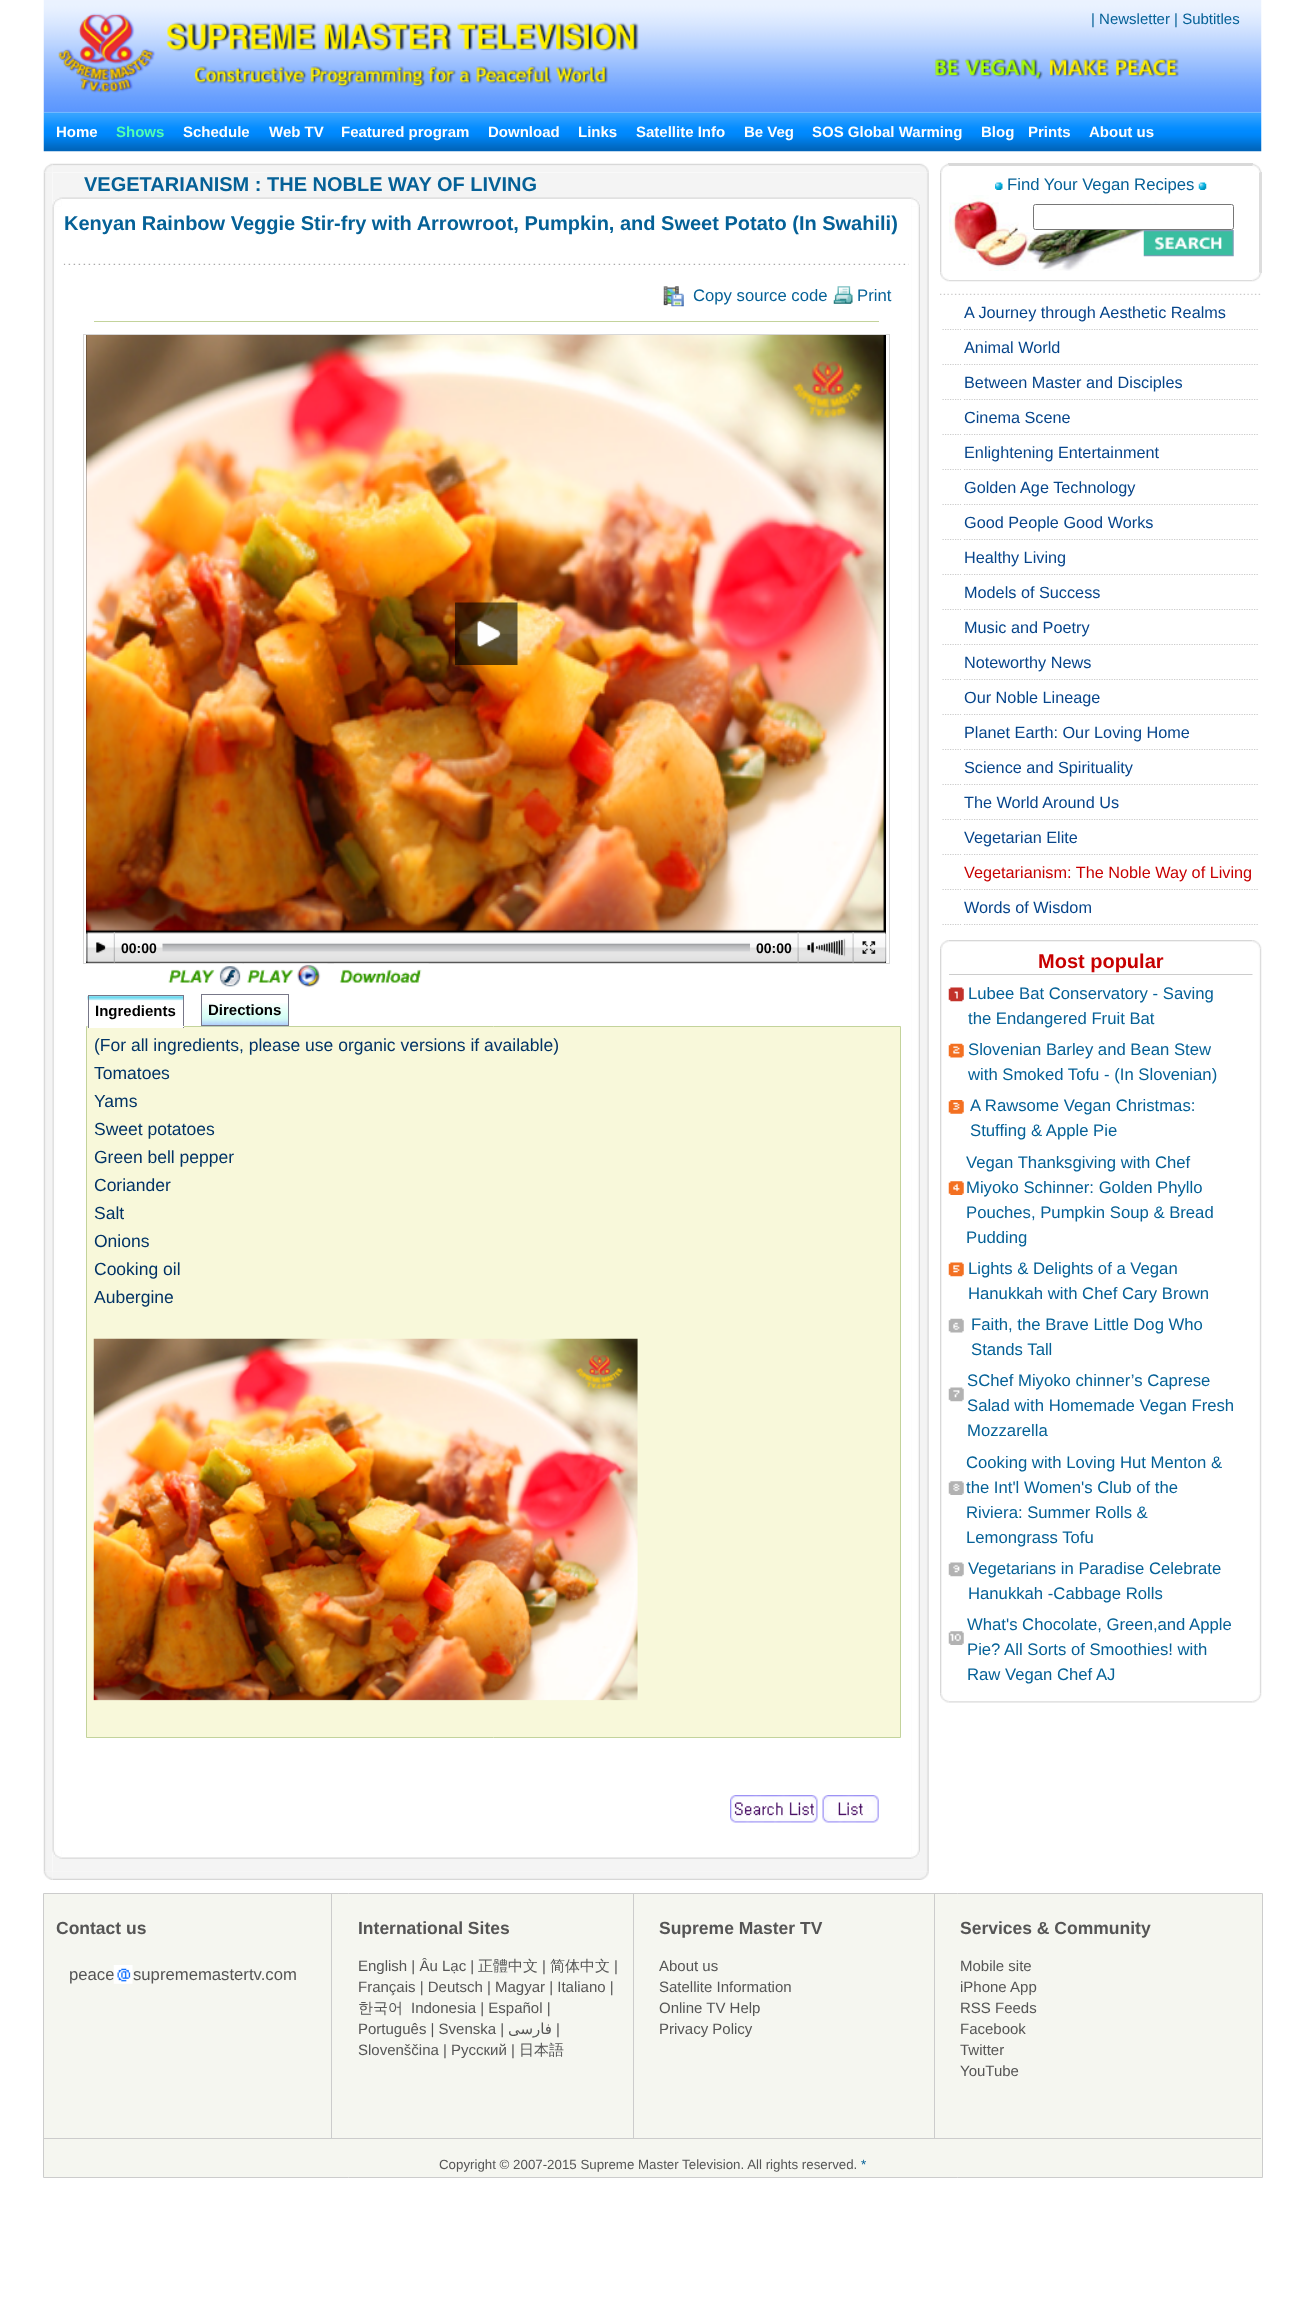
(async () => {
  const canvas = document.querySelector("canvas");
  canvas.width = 1305;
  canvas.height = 2306;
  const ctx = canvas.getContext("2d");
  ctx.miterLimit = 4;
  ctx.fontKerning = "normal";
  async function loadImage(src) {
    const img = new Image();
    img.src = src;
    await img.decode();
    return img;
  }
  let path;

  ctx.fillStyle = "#ffffff";
  ctx.fillRect(0, 0, 1305, 2306);
  ctx.drawImage(await loadImage("img/1.png"), 43, 0, 1219, 113);
  ctx.drawImage(await loadImage("img/2.png"), 58, 13, 581, 80);
  ctx.drawImage(await loadImage("img/3.png"), 934, 58, 245, 22);
  ctx.drawImage(await loadImage("img/4.png"), 43, 112, 1219, 40);
  ctx.drawImage(await loadImage("img/6.png"), 52, 163, 868, 10);
  ctx.drawImage(await loadImage("img/8.png"), 43, 172, 10, 1700);
  ctx.drawImage(await loadImage("img/5.png"), 43, 163, 10, 10);
  ctx.drawImage(await loadImage("img/42.png"), 920, 172, 9, 1700);
  ctx.drawImage(await loadImage("img/7.png"), 920, 163, 9, 10);
  ctx.fillStyle = "#f4f4f4";
  ctx.fillRect(53, 173, 867, 1698);
  ctx.drawImage(await loadImage("img/9.png"), 52, 197, 9, 9);
  ctx.drawImage(await loadImage("img/10.png"), 61, 197, 851, 9);
  ctx.drawImage(await loadImage("img/11.png"), 911, 197, 9, 9);
  ctx.drawImage(await loadImage("img/12.png"), 52, 206, 9, 1644);
  ctx.fillStyle = "#ffffff";
  ctx.fillRect(61, 206, 850, 1644);
  ctx.drawImage(await loadImage("img/13.png"), 63, 263, 846, 2);
  ctx.drawImage(await loadImage("img/14.png"), 663, 286, 21, 21);
  ctx.drawImage(await loadImage("img/15.png"), 833, 286, 20, 18);
  for (const [x, y, w, h, color] of [
    [94, 321, 785, 1, "#c3d39b"],
    [83, 334, 807, 1, "#d7d7d7"],
    [889, 334, 1, 630, "#d7d7d7"],
    [83, 963, 807, 1, "#d7d7d7"],
    [83, 334, 1, 630, "#d7d7d7"],
    [86, 335, 800, 628, "#000000"],
  ]) {
    ctx.fillStyle = color;
    ctx.fillRect(x, y, w, h);
  }
  ctx.drawImage(await loadImage("img/16.png"), 86, 335, 798, 596);
  ctx.drawImage(await loadImage("img/17.png"), 455, 602, 63, 63);
  ctx.drawImage(await loadImage("img/18.png"), 477, 621, 24, 26);
  ctx.drawImage(await loadImage("img/19.png"), 86, 932, 2, 31);
  ctx.drawImage(await loadImage("img/20.png"), 87, 932, 798, 31);
  ctx.drawImage(await loadImage("img/21.png"), 885, 932, 2, 31);
  ctx.drawImage(await loadImage("img/22.png"), 96, 942, 10, 11);
  ctx.drawImage(await loadImage("img/23.png"), 113, 932, 2, 31);
  ctx.drawImage(await loadImage("img/24.png"), 162, 943, 588, 9);
  ctx.drawImage(await loadImage("img/25.png"), 797, 932, 2, 31);
  ctx.drawImage(await loadImage("img/26.png"), 807, 942, 7, 11);
  ctx.drawImage(await loadImage("img/27.png"), 816, 938, 30, 19);
  ctx.drawImage(await loadImage("img/28.png"), 816, 939, 27, 17);
  ctx.drawImage(await loadImage("img/25.png"), 852, 932, 2, 31);
  ctx.drawImage(await loadImage("img/29.png"), 862, 941, 14, 13);
  ctx.drawImage(await loadImage("img/30.png"), 160, 963, 83, 24);
  ctx.drawImage(await loadImage("img/31.png"), 244, 963, 84, 25);
  ctx.drawImage(await loadImage("img/32.png"), 334, 963, 95, 20);
  ctx.fillStyle = "#f8f8da";
  ctx.beginPath();
  ctx.rect(86.5, 1026.5, 814, 711);
  ctx.fill();
  ctx.strokeStyle = "#c3d39b";
  ctx.stroke();
  ctx.fillStyle = "#ffffff";
  ctx.fillRect(89, 1026, 94, 2);
  ctx.drawImage(await loadImage("img/33.png"), 87, 996, 96, 32);
  ctx.drawImage(await loadImage("img/34.png"), 201, 1003, 88, 24);
  for (const [x, y, w, h, color] of [
    [88, 995, 96, 1, "#777788"],
    [183, 995, 1, 33, "#777788"],
    [183, 1026, 1, 1, "#ffffff"],
    [88, 995, 1, 33, "#777788"],
  ]) {
    ctx.fillStyle = color;
    ctx.fillRect(x, y, w, h);
  }
  ctx.strokeStyle = "#777788";
  ctx.strokeRect(201.5, 994.5, 87, 31);
  ctx.drawImage(await loadImage("img/35.png"), 93, 1338, 545, 363);
  ctx.drawImage(await loadImage("img/36.png"), 730, 1795, 88, 28);
  ctx.drawImage(await loadImage("img/37.png"), 822, 1795, 57, 28);
  ctx.drawImage(await loadImage("img/38.png"), 911, 206, 9, 1644);
  ctx.drawImage(await loadImage("img/39.png"), 52, 1850, 9, 9);
  ctx.drawImage(await loadImage("img/40.png"), 61, 1850, 851, 9);
  ctx.drawImage(await loadImage("img/41.png"), 911, 1850, 9, 9);
  ctx.drawImage(await loadImage("img/44.png"), 52, 1871, 868, 9);
  ctx.drawImage(await loadImage("img/43.png"), 43, 1871, 10, 9);
  ctx.drawImage(await loadImage("img/45.png"), 920, 1871, 9, 9);
  ctx.fillStyle = "#d9d9d9";
  ctx.fillRect(948, 163, 305, 3);
  ctx.drawImage(await loadImage("img/48.png"), 940, 172, 2, 101);
  ctx.drawImage(await loadImage("img/46.png"), 940, 163, 9, 10);
  ctx.fillStyle = "#dddddd";
  ctx.fillRect(1259, 172, 3, 101);
  ctx.drawImage(await loadImage("img/47.png"), 1252, 163, 10, 10);
  ctx.drawImage(await loadImage("img/49.png"), 949, 195, 220, 76);
  ctx.drawImage(await loadImage("img/50.png"), 995, 182, 8, 8);
  ctx.drawImage(await loadImage("img/51.png"), 1198, 182, 9, 8);
  ctx.fillStyle = "#ffffff";
  ctx.beginPath();
  ctx.roundRect(1033.5, 204.5, 200, 25, 2);
  ctx.fill();
  ctx.strokeStyle = "#767676";
  ctx.stroke();
  ctx.drawImage(await loadImage("img/52.png"), 1143, 230, 91, 27);
  ctx.drawImage(await loadImage("img/54.png"), 948, 280, 305, 2);
  ctx.drawImage(await loadImage("img/53.png"), 940, 272, 9, 10);
  ctx.drawImage(await loadImage("img/55.png"), 1252, 272, 10, 10);
  ctx.drawImage(await loadImage("img/56.png"), 940, 293, 321, 2);
  path = new Path2D("M964 329.5H1259");
  ctx.strokeStyle = "#cccccc";
  ctx.lineWidth = 1.2;
  ctx.setLineDash([1.25, 1.25]);
  ctx.stroke(path);
  path = new Path2D("M942.5 329.5H961");
  ctx.stroke(path);
  path = new Path2D("M964 364.5H1259");
  ctx.stroke(path);
  path = new Path2D("M942.5 364.5H961");
  ctx.stroke(path);
  path = new Path2D("M964 399.5H1259");
  ctx.stroke(path);
  path = new Path2D("M942.5 399.5H961");
  ctx.stroke(path);
  path = new Path2D("M964 434.5H1259");
  ctx.stroke(path);
  path = new Path2D("M942.5 434.5H961");
  ctx.stroke(path);
  path = new Path2D("M964 469.5H1259");
  ctx.stroke(path);
  path = new Path2D("M942.5 469.5H961");
  ctx.stroke(path);
  path = new Path2D("M964 504.5H1259");
  ctx.stroke(path);
  path = new Path2D("M942.5 504.5H961");
  ctx.stroke(path);
  path = new Path2D("M964 539.5H1259");
  ctx.stroke(path);
  path = new Path2D("M942.5 539.5H961");
  ctx.stroke(path);
  path = new Path2D("M964 574.5H1259");
  ctx.stroke(path);
  path = new Path2D("M942.5 574.5H961");
  ctx.stroke(path);
  path = new Path2D("M964 609.5H1259");
  ctx.stroke(path);
  path = new Path2D("M942.5 609.5H961");
  ctx.stroke(path);
  path = new Path2D("M964 644.5H1259");
  ctx.stroke(path);
  path = new Path2D("M942.5 644.5H961");
  ctx.stroke(path);
  path = new Path2D("M964 679.5H1259");
  ctx.stroke(path);
  path = new Path2D("M942.5 679.5H961");
  ctx.stroke(path);
  path = new Path2D("M964 714.5H1259");
  ctx.stroke(path);
  path = new Path2D("M942.5 714.5H961");
  ctx.stroke(path);
  path = new Path2D("M964 749.5H1259");
  ctx.stroke(path);
  path = new Path2D("M942.5 749.5H961");
  ctx.stroke(path);
  path = new Path2D("M964 784.5H1259");
  ctx.stroke(path);
  path = new Path2D("M942.5 784.5H961");
  ctx.stroke(path);
  path = new Path2D("M964 819.5H1259");
  ctx.stroke(path);
  path = new Path2D("M942.5 819.5H961");
  ctx.stroke(path);
  path = new Path2D("M964 854.5H1259");
  ctx.stroke(path);
  path = new Path2D("M942.5 854.5H961");
  ctx.stroke(path);
  path = new Path2D("M964 889.5H1259");
  ctx.stroke(path);
  path = new Path2D("M942.5 889.5H961");
  ctx.stroke(path);
  path = new Path2D("M964 924.5H1259");
  ctx.stroke(path);
  path = new Path2D("M942.5 924.5H961");
  ctx.stroke(path);
  ctx.drawImage(await loadImage("img/58.png"), 948, 940, 305, 2);
  ctx.drawImage(await loadImage("img/60.png"), 940, 948, 2, 746);
  ctx.drawImage(await loadImage("img/57.png"), 940, 940, 9, 9);
  ctx.fillStyle = "#cccccc";
  ctx.fillRect(949, 974, 304, 1);
  ctx.drawImage(await loadImage("img/71.png"), 1252, 948, 10, 746);
  ctx.drawImage(await loadImage("img/59.png"), 1252, 940, 10, 9);
  ctx.drawImage(await loadImage("img/61.png"), 948, 987, 16, 15);
  ctx.drawImage(await loadImage("img/62.png"), 948, 1043, 16, 15);
  ctx.drawImage(await loadImage("img/63.png"), 948, 1100, 16, 14);
  ctx.drawImage(await loadImage("img/64.png"), 948, 1181, 16, 14);
  ctx.drawImage(await loadImage("img/65.png"), 948, 1262, 16, 15);
  ctx.drawImage(await loadImage("img/66.png"), 948, 1318, 16, 15);
  ctx.drawImage(await loadImage("img/67.png"), 948, 1387, 16, 15);
  ctx.drawImage(await loadImage("img/68.png"), 948, 1481, 16, 14);
  ctx.drawImage(await loadImage("img/69.png"), 948, 1562, 16, 15);
  ctx.drawImage(await loadImage("img/70.png"), 948, 1631, 16, 14);
  ctx.drawImage(await loadImage("img/73.png"), 948, 1701, 305, 2);
  ctx.drawImage(await loadImage("img/72.png"), 940, 1694, 9, 9);
  ctx.drawImage(await loadImage("img/74.png"), 1252, 1694, 10, 9);
  ctx.fillStyle = "#f5f6f0";
  ctx.beginPath();
  ctx.rect(43.5, 1893.5, 1219, 284);
  ctx.fill();
  ctx.lineWidth = 1;
  ctx.setLineDash([]);
  ctx.stroke();
  for (const [x, y, w, h, color] of [
    [331, 1894, 1, 244, "#cccccc"],
    [633, 1894, 1, 244, "#cccccc"],
    [934, 1894, 1, 244, "#cccccc"],
    [44, 2138, 1217, 1, "#cccccc"],
  ]) {
    ctx.fillStyle = color;
    ctx.fillRect(x, y, w, h);
  }
  ctx.font = "15px Liberation Sans";
  ctx.fillStyle = "#056197";
  ctx.fillText("| Newsletter | Subtitles", 1091, 24);
  ctx.font = "bold 15px Liberation Sans";
  ctx.fillStyle = "#ffffff";
  ctx.fillText("Home", 56, 137);
  ctx.fillStyle = "#53ffb0";
  ctx.fillText("Shows", 116, 137);
  ctx.fillStyle = "#ffffff";
  for (const [text, x, y] of [
    ["Schedule", 183, 137],
    ["Web TV", 269, 137],
    ["Featured program", 341, 137],
    ["Download", 488, 137],
    ["Links", 578, 137],
    ["Satellite Info", 636, 137],
    ["Be Veg", 744, 137],
    ["SOS Global Warming", 812, 137],
    ["Blog", 981, 137],
    ["Prints", 1028, 137],
    ["About us", 1089, 137],
  ]) {
    ctx.fillText(text, x, y);
  }
  ctx.font = "bold 20px Liberation Sans";
  ctx.fillStyle = "#056197";
  ctx.fillText("VEGETARIANISM : THE NOBLE WAY OF LIVING", 84, 191);
  ctx.fillText("Kenyan Rainbow Veggie Stir-fry with Arrowroot, Pumpkin, and Sweet Potato (In Swahili)", 64, 230);
  ctx.font = "16.7px Liberation Sans";
  ctx.fillText("Copy source code", 693, 301);
  ctx.fillText("Print", 857, 301);
  ctx.font = "bold 14px Liberation Sans";
  ctx.fillStyle = "#000000";
  ctx.fillText("00:00", 121, 953);
  ctx.fillText("00:00", 756, 953);
  ctx.font = "bold 15px Liberation Sans";
  ctx.fillText("Ingredients", 95, 1016);
  ctx.fillText("Directions", 208, 1015);
  ctx.font = "17.5px Liberation Sans";
  ctx.fillStyle = "#003366";
  for (const [text, x, y] of [
    ["(For all ingredients, please use organic versions if available)", 94, 1051],
    ["Tomatoes", 94, 1079],
    ["Yams", 94, 1107],
    ["Sweet potatoes", 94, 1135],
    ["Green bell pepper", 94, 1163],
    ["Coriander", 94, 1191],
    ["Salt", 94, 1219],
    ["Onions", 94, 1247],
    ["Cooking oil", 94, 1275],
    ["Aubergine", 94, 1303],
  ]) {
    ctx.fillText(text, x, y);
  }
  ctx.font = "16.7px Liberation Sans";
  ctx.fillStyle = "#056197";
  ctx.fillText("Find Your Vegan Recipes", 1007, 190);
  ctx.font = "16.25px Liberation Sans";
  ctx.fillStyle = "#06458b";
  for (const [text, x, y] of [
    ["A Journey through Aesthetic Realms", 964, 318],
    ["Animal World", 964, 353],
    ["Between Master and Disciples", 964, 388],
    ["Cinema Scene", 964, 423],
    ["Enlightening Entertainment", 964, 458],
    ["Golden Age Technology", 964, 493],
    ["Good People Good Works", 964, 528],
    ["Healthy Living", 964, 563],
    ["Models of Success", 964, 598],
    ["Music and Poetry", 964, 633],
    ["Noteworthy News", 964, 668],
    ["Our Noble Lineage", 964, 703],
    ["Planet Earth: Our Loving Home", 964, 738],
    ["Science and Spirituality", 964, 773],
    ["The World Around Us", 964, 808],
    ["Vegetarian Elite", 964, 843],
  ]) {
    ctx.fillText(text, x, y);
  }
  ctx.fillStyle = "#c70000";
  ctx.fillText("Vegetarianism: The Noble Way of Living", 964, 878);
  ctx.fillStyle = "#06458b";
  ctx.fillText("Words of Wisdom", 964, 913);
  ctx.font = "bold 20px Liberation Sans";
  ctx.fillStyle = "#c70000";
  ctx.fillText("Most popular", 1038, 968);
  ctx.font = "16.7px Liberation Sans";
  ctx.fillStyle = "#056197";
  for (const [text, x, y] of [
    ["Lubee Bat Conservatory - Saving", 968, 999],
    ["the Endangered Fruit Bat", 968, 1024],
    ["Slovenian Barley and Bean Stew", 968, 1055],
    ["with Smoked Tofu - (In Slovenian)", 968, 1080],
    ["A Rawsome Vegan Christmas:", 970, 1111],
    ["Stuffing & Apple Pie", 970, 1136],
    ["Vegan Thanksgiving with Chef", 966, 1168],
    ["Miyoko Schinner: Golden Phyllo", 966, 1193],
    ["Pouches, Pumpkin Soup & Bread", 966, 1218],
    ["Pudding", 966, 1243],
    ["Lights & Delights of a Vegan", 968, 1274],
    ["Hanukkah with Chef Cary Brown", 968, 1299],
    ["Faith, the Brave Little Dog Who", 971, 1330],
    ["Stands Tall", 971, 1355],
    ["SChef Miyoko chinner’s Caprese", 967, 1386],
    ["Salad with Homemade Vegan Fresh", 967, 1411],
    ["Mozzarella", 967, 1436],
    ["Cooking with Loving Hut Menton &", 966, 1468],
    ["the Int'l Women's Club of the", 966, 1493],
    ["Riviera: Summer Rolls &", 966, 1518],
    ["Lemongrass Tofu", 966, 1543],
    ["Vegetarians in Paradise Celebrate", 968, 1574],
    ["Hanukkah -Cabbage Rolls", 968, 1599],
    ["What's Chocolate, Green,and Apple", 967, 1630],
    ["Pie? All Sorts of Smoothies! with", 967, 1655],
    ["Raw Vegan Chef AJ", 967, 1680],
  ]) {
    ctx.fillText(text, x, y);
  }
  ctx.font = "bold 17.5px Liberation Sans";
  ctx.fillStyle = "#555555";
  ctx.fillText("Contact us", 56, 1934);
  ctx.font = "16.7px Liberation Sans";
  ctx.fillText("peace", 69, 1980);
  ctx.drawImage(await loadImage("img/75.png"), 113, 1965, 20, 19);
  ctx.fillText("suprememastertv.com", 133, 1980);
  ctx.font = "bold 17.5px Liberation Sans";
  ctx.fillText("International Sites", 358, 1934);
  ctx.font = "15px Liberation Sans";
  ctx.fillText("English | Âu Lạc |", 358, 1971);
  ctx.font = "500 15px WenQuanYi Zen Hei";
  ctx.fillText("正體中文", 478, 1971);
  ctx.font = "15px Liberation Sans";
  ctx.fillText("|", 542, 1971);
  ctx.font = "500 15px WenQuanYi Zen Hei";
  ctx.fillText("简体中文", 550, 1971);
  ctx.font = "15px Liberation Sans";
  ctx.fillText("|", 614, 1971);
  ctx.fillText("Français | Deutsch | Magyar | Italiano |", 358, 1992);
  ctx.font = "500 15px WenQuanYi Zen Hei";
  ctx.fillText("한국어", 358, 2013);
  ctx.font = "15px Liberation Sans";
  ctx.fillText("Indonesia | Español |", 411, 2013);
  ctx.fillText("Português | Svenska |", 358, 2034);
  ctx.direction = "rtl";
  ctx.font = "15px DejaVu Sans";
  ctx.fillText("فارسی", 552, 2034);
  ctx.direction = "ltr";
  ctx.font = "15px Liberation Sans";
  ctx.fillText("|", 556, 2034);
  ctx.fillText("Slovenščina | Русский |", 358, 2055);
  ctx.font = "500 15px WenQuanYi Zen Hei";
  ctx.fillText("日本語", 519, 2055);
  ctx.font = "bold 17.5px Liberation Sans";
  ctx.fillText("Supreme Master TV", 659, 1934);
  ctx.font = "15px Liberation Sans";
  for (const [text, x, y] of [
    ["About us", 659, 1971],
    ["Satellite Information", 659, 1992],
    ["Online TV Help", 659, 2013],
    ["Privacy Policy", 659, 2034],
  ]) {
    ctx.fillText(text, x, y);
  }
  ctx.font = "bold 17.5px Liberation Sans";
  ctx.fillText("Services & Community", 960, 1934);
  ctx.font = "15px Liberation Sans";
  for (const [text, x, y] of [
    ["Mobile site", 960, 1971],
    ["iPhone App", 960, 1992],
    ["RSS Feeds", 960, 2013],
    ["Facebook", 960, 2034],
    ["Twitter", 960, 2055],
    ["YouTube", 960, 2076],
  ]) {
    ctx.fillText(text, x, y);
  }
  ctx.font = "13.3px Liberation Sans";
  ctx.fillText("Copyright © 2007-2015 Supreme Master Television. All rights reserved.", 439, 2169);
  ctx.fillStyle = "#056197";
  ctx.fillText("*", 861, 2169);
})();
